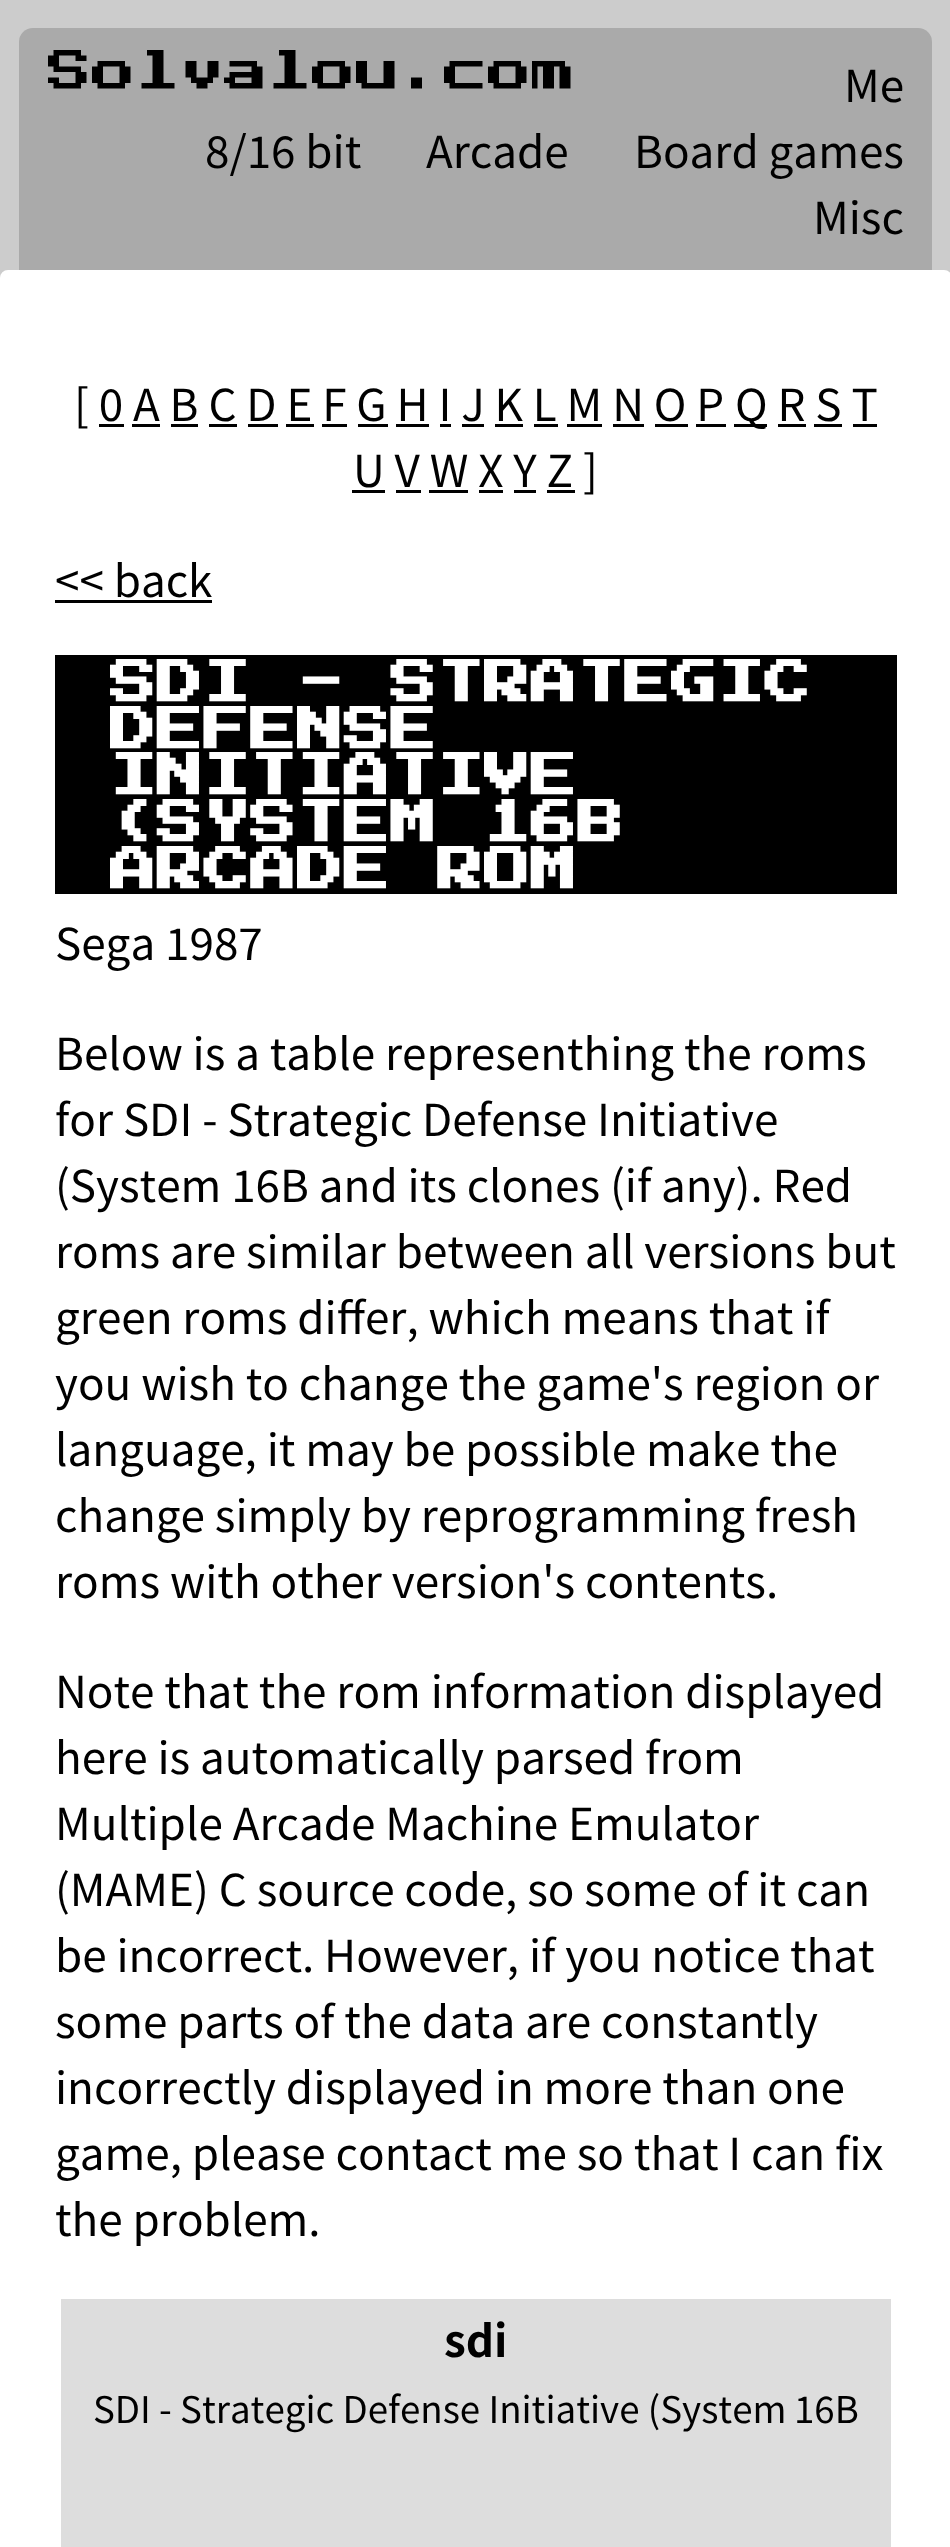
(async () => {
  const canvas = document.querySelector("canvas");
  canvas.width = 950;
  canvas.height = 2547;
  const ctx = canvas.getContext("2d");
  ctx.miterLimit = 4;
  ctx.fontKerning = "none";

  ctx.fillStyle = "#cccccc";
  ctx.fillRect(0, 0, 950, 2547);
  ctx.fillStyle = "#aaaaaa";
  ctx.beginPath();
  ctx.roundRect(19, 28, 913, 242, [14, 14, 0, 0]);
  ctx.fill();
  ctx.fillStyle = "#ffffff";
  ctx.beginPath();
  ctx.roundRect(0, 270, 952, 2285, 8);
  ctx.fill();
  for (const [x, y, w, h, color] of [
    [734, 424, 33, 3, "#000000"],
    [99, 424, 25, 3, "#000000"],
    [132, 424, 28, 3, "#000000"],
    [171, 424, 27, 3, "#000000"],
    [209, 424, 28, 3, "#000000"],
    [248, 424, 30, 3, "#000000"],
    [286, 424, 28, 3, "#000000"],
    [322, 424, 25, 3, "#000000"],
    [358, 424, 30, 3, "#000000"],
    [396, 424, 33, 3, "#000000"],
    [440, 424, 11, 3, "#000000"],
    [462, 424, 22, 3, "#000000"],
    [495, 424, 28, 3, "#000000"],
    [534, 424, 24, 3, "#000000"],
    [567, 424, 35, 3, "#000000"],
    [613, 424, 31, 3, "#000000"],
    [655, 424, 33, 3, "#000000"],
    [696, 424, 30, 3, "#000000"],
    [778, 424, 28, 3, "#000000"],
    [814, 424, 28, 3, "#000000"],
    [853, 424, 24, 3, "#000000"],
    [352, 490, 33, 3, "#000000"],
    [396, 490, 25, 3, "#000000"],
    [429, 490, 39, 3, "#000000"],
    [479, 490, 24, 3, "#000000"],
    [514, 490, 22, 3, "#000000"],
    [547, 490, 28, 3, "#000000"],
    [55, 600, 157, 3, "#000000"],
    [55, 655, 842, 239, "#000000"],
    [61, 2299, 830, 248, "#dddddd"],
  ]) {
    ctx.fillStyle = color;
    ctx.fillRect(x, y, w, h);
  }
  ctx.font = "44px 'Press Start 2P'";
  ctx.fillStyle = "#000000";
  ctx.fillText("Solvalou.com", 48, 94);
  ctx.font = "44px Noto Sans TC";
  for (const [text, x, y] of [
    ["Me", 844, 102],
    ["8/16 bit", 205, 168],
    ["Arcade", 426, 168],
    ["Board games", 634, 168],
    ["Misc", 813, 234],
    ["[ 0 A B C D E F G H I J K L M N O P", 74, 421],
    ["Q R S T", 735, 421],
    ["U V W X Y Z ]", 353, 487],
    ["<< back", 55, 597],
  ]) {
    ctx.fillText(text, x, y);
  }
  ctx.font = "bold 46.75px 'Press Start 2P'";
  ctx.fillStyle = "#ffffff";
  for (const [text, x, y] of [
    ["SDI - STRATEGIC", 110, 707],
    ["DEFENSE", 110, 754],
    ["INITIATIVE", 110, 800],
    ["(SYSTEM 16B", 110, 847],
    ["ARCADE ROM", 110, 894],
  ]) {
    ctx.fillText(text, x, y);
  }
  ctx.font = "44px Noto Sans TC";
  ctx.fillStyle = "#000000";
  for (const [text, x, y] of [
    ["Sega 1987", 55, 960],
    ["Below is a table representhing the roms", 55, 1070],
    ["for SDI - Strategic Defense Initiative", 55, 1136],
    ["(System 16B and its clones (if any). Red", 55, 1202],
    ["roms are similar between all versions but", 55, 1268],
    ["green roms differ, which means that if", 55, 1334],
    ["you wish to change the game's region or", 55, 1400],
    ["language, it may be possible make the", 55, 1466],
    ["change simply by reprogramming fresh", 55, 1532],
    ["roms with other version's contents.", 55, 1598],
    ["Note that the rom information displayed", 55, 1708],
    ["here is automatically parsed from", 55, 1774],
    ["Multiple Arcade Machine Emulator", 55, 1840],
    ["(MAME) C source code, so some of it can", 55, 1906],
    ["be incorrect. However, if you notice", 55, 1972],
    ["that", 790, 1972],
    ["some parts of the data are constantly", 55, 2038],
    ["incorrectly displayed in more than one", 55, 2104],
    ["game, please contact me so that I can fix", 55, 2170],
    ["the problem.", 55, 2236],
  ]) {
    ctx.fillText(text, x, y);
  }
  ctx.font = "bold 44px Noto Sans TC";
  ctx.fillText("sdi", 444, 2357);
  ctx.font = "36.7px Noto Sans TC";
  ctx.fillText("SDI - Strategic Defense Initiative (System", 93, 2423);
  ctx.fillText("16B", 794, 2423);
})();
